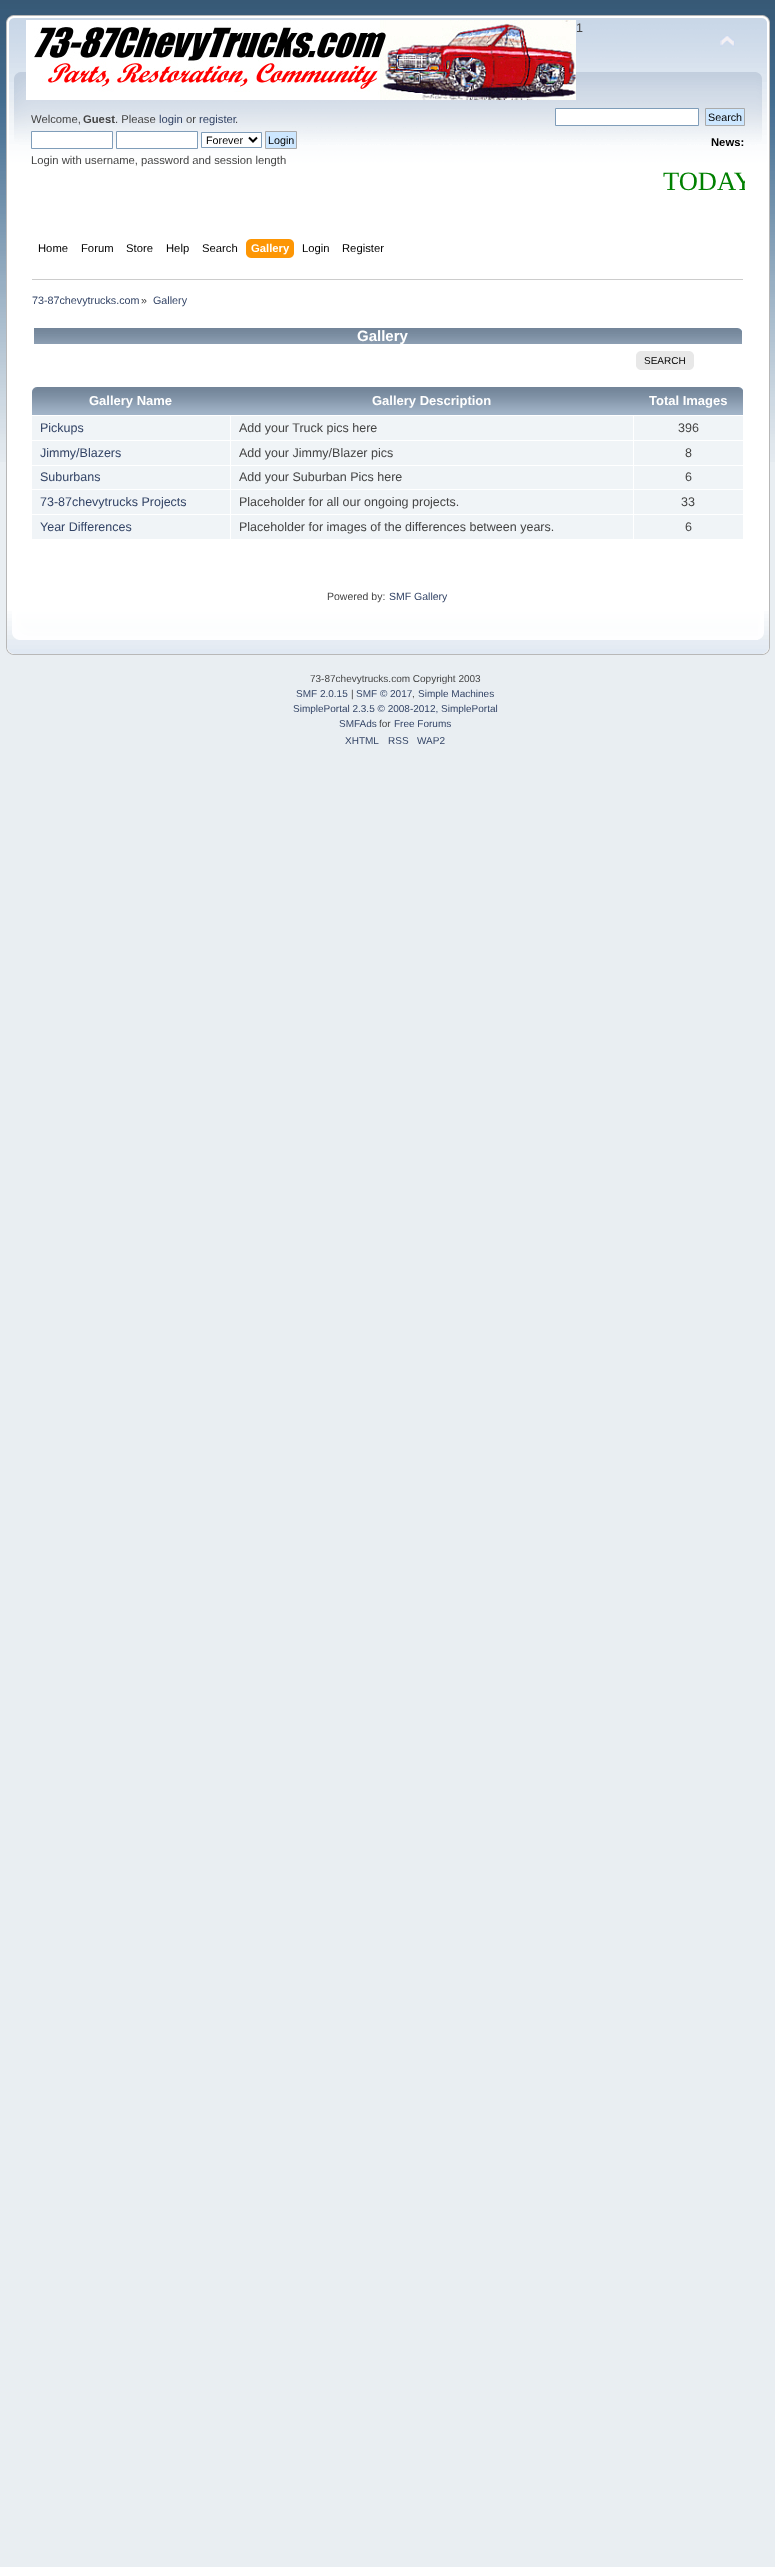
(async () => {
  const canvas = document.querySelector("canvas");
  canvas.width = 775;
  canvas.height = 2567;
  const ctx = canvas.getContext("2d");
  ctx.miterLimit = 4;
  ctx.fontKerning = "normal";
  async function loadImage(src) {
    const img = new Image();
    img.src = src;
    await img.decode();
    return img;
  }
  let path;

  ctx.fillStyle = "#e9eef2";
  ctx.fillRect(0, 0, 775, 2567);
  ctx.drawImage(await loadImage("img/1.png"), 0, 0, 775, 462);
  ctx.drawImage(await loadImage("img/2.png"), 6, 15, 750, 258);
  ctx.drawImage(await loadImage("img/3.png"), 756, 15, 14, 258);
  ctx.drawImage(await loadImage("img/4.png"), 26, 20, 550, 80);
  ctx.drawImage(await loadImage("img/5.png"), 720, 35, 15, 12);
  ctx.fillStyle = "#ffffff";
  ctx.beginPath();
  ctx.rect(31.5, 131.5, 81, 17);
  ctx.fill();
  ctx.strokeStyle = "#7f9db9";
  ctx.stroke();
  ctx.beginPath();
  ctx.rect(116.5, 131.5, 81, 17);
  ctx.fill();
  ctx.stroke();
  ctx.beginPath();
  ctx.rect(201.5, 132.5, 60, 15);
  ctx.fill();
  ctx.stroke();
  path = new Path2D("M249 137.5L253 141.5L257 137.5");
  ctx.strokeStyle = "#000000";
  ctx.lineWidth = 2;
  ctx.stroke(path);
  ctx.fillStyle = "#cde7ff";
  ctx.beginPath();
  ctx.rect(265.5, 131.5, 31, 17);
  ctx.fill();
  ctx.strokeStyle = "#aaaaaa";
  ctx.lineWidth = 1;
  ctx.stroke();
  ctx.fillStyle = "#ffffff";
  ctx.beginPath();
  ctx.rect(555.5, 108.5, 143, 17);
  ctx.fill();
  ctx.strokeStyle = "#7f9db9";
  ctx.stroke();
  ctx.fillStyle = "#cde7ff";
  ctx.beginPath();
  ctx.rect(705.5, 108.5, 39, 17);
  ctx.fill();
  ctx.strokeStyle = "#aaaaaa";
  ctx.stroke();
  ctx.drawImage(await loadImage("img/6.png"), 251, 239, 43, 19);
  ctx.drawImage(await loadImage("img/7.png"), 246, 239, 5, 19);
  for (const [x, y, w, h, color] of [
    [7, 273, 762, 338, "#ffffff"],
    [6, 273, 1, 338, "#b7b7b7"],
    [769, 273, 1, 338, "#b7b7b7"],
    [32, 279, 711, 1, "#cccccc"],
  ]) {
    ctx.fillStyle = color;
    ctx.fillRect(x, y, w, h);
  }
  ctx.drawImage(await loadImage("img/8.png"), 34, 328, 708, 16);
  ctx.fillStyle = "#e8e8e8";
  ctx.fillRect(640, 351, 50, 19);
  ctx.drawImage(await loadImage("img/9.png"), 636, 351, 4, 19);
  ctx.drawImage(await loadImage("img/10.png"), 690, 351, 4, 19);
  ctx.drawImage(await loadImage("img/11.png"), 32, 387, 198, 28);
  ctx.drawImage(await loadImage("img/12.png"), 230, 387, 403, 28);
  ctx.drawImage(await loadImage("img/13.png"), 633, 387, 110, 28);
  for (const [x, y, w, h, color] of [
    [32, 416, 711, 24, "#f0f4f7"],
    [32, 441, 711, 24, "#f0f4f7"],
    [32, 466, 711, 23, "#f0f4f7"],
    [32, 490, 711, 24, "#f0f4f7"],
    [32, 515, 711, 24, "#f0f4f7"],
    [230, 415, 1, 125, "#ffffff"],
    [633, 415, 1, 125, "#ffffff"],
  ]) {
    ctx.fillStyle = color;
    ctx.fillRect(x, y, w, h);
  }
  ctx.drawImage(await loadImage("img/14.png"), 6, 611, 752, 44);
  ctx.drawImage(await loadImage("img/15.png"), 758, 611, 12, 44);
  ctx.font = "12.5px Liberation Sans";
  ctx.fillStyle = "#444444";
  ctx.fillText("1", 576, 32);
  ctx.font = "11.25px Liberation Sans";
  ctx.fillText("Welcome,", 31, 123);
  ctx.font = "bold 11.25px Liberation Sans";
  ctx.fillText("Guest", 83, 123);
  ctx.font = "11.25px Liberation Sans";
  ctx.fillText(". Please", 115, 123);
  ctx.fillStyle = "#334466";
  ctx.fillText("login", 159, 123);
  ctx.fillStyle = "#444444";
  ctx.fillText("or", 186, 123);
  ctx.fillStyle = "#334466";
  ctx.fillText("register", 199, 123);
  ctx.fillStyle = "#444444";
  ctx.fillText(".", 235, 123);
  ctx.font = "10.75px Liberation Sans";
  ctx.fillStyle = "#000000";
  ctx.fillText("Forever", 206, 144);
  ctx.fillText("Login", 268, 144);
  ctx.font = "11.25px Liberation Sans";
  ctx.fillStyle = "#444444";
  ctx.fillText("Login with username, password and session length", 31, 164);
  ctx.font = "10.75px Liberation Sans";
  ctx.fillStyle = "#000000";
  ctx.fillText("Search", 708, 121);
  ctx.font = "bold 11.25px Liberation Sans";
  ctx.fillText("News:", 711, 146);
  ctx.save();
  ctx.beginPath();
  ctx.rect(388, 163, 357, 38);
  ctx.clip();
  ctx.font = "26.5px Liberation Serif";
  ctx.fillStyle = "#008000";
  ctx.fillText("TODAY", 663, 190);
  ctx.restore();
  ctx.font = "11.25px Liberation Sans";
  for (const [text, x, y] of [
    ["Home", 38, 252],
    ["Forum", 81, 252],
    ["Store", 126, 252],
    ["Help", 166, 252],
    ["Search", 202, 252],
  ]) {
    ctx.fillText(text, x, y);
  }
  ctx.font = "bold 11.25px Liberation Sans";
  ctx.fillStyle = "#ffffff";
  ctx.fillText("Gallery", 251, 252);
  ctx.font = "11.25px Liberation Sans";
  ctx.fillStyle = "#000000";
  ctx.fillText("Login", 302, 252);
  ctx.fillText("Register", 342, 252);
  ctx.font = "10.75px Liberation Sans";
  ctx.fillStyle = "#334466";
  ctx.fillText("73-87chevytrucks.com", 32, 304);
  ctx.fillStyle = "#444444";
  ctx.fillText("»", 141, 304);
  ctx.fillStyle = "#334466";
  ctx.fillText("Gallery", 153, 304);
  ctx.font = "bold 15px Liberation Sans";
  ctx.fillStyle = "#ffffff";
  ctx.fillText("Gallery", 357, 341);
  ctx.font = "10px Liberation Sans";
  ctx.fillStyle = "#000000";
  ctx.fillText("SEARCH", 644, 364);
  ctx.font = "bold 13px Liberation Sans";
  ctx.fillStyle = "#ffffff";
  for (const [text, x, y] of [
    ["Gallery Name", 89, 405],
    ["Gallery Description", 372, 405],
    ["Total Images", 649, 405],
  ]) {
    ctx.fillText(text, x, y);
  }
  ctx.font = "12.5px Liberation Sans";
  ctx.fillStyle = "#334466";
  ctx.fillText("Pickups", 40, 432);
  ctx.fillStyle = "#444444";
  ctx.fillText("Add your Truck pics here", 239, 432);
  ctx.fillText("396", 678, 432);
  ctx.fillStyle = "#334466";
  ctx.fillText("Jimmy/Blazers", 40, 457);
  ctx.fillStyle = "#444444";
  ctx.fillText("Add your Jimmy/Blazer pics", 239, 457);
  ctx.fillText("8", 685, 457);
  ctx.fillStyle = "#334466";
  ctx.fillText("Suburbans", 40, 481);
  ctx.fillStyle = "#444444";
  ctx.fillText("Add your Suburban Pics here", 239, 481);
  ctx.fillText("6", 685, 481);
  ctx.fillStyle = "#334466";
  ctx.fillText("73-87chevytrucks Projects", 40, 506);
  ctx.fillStyle = "#444444";
  ctx.fillText("Placeholder for all our ongoing projects.", 239, 506);
  ctx.fillText("33", 681, 506);
  ctx.fillStyle = "#334466";
  ctx.fillText("Year Differences", 40, 531);
  ctx.fillStyle = "#444444";
  ctx.fillText("Placeholder for images of the differences between years.", 239, 531);
  ctx.fillText("6", 685, 531);
  ctx.font = "10.5px Liberation Sans";
  ctx.fillText("Powered by:", 327, 600);
  ctx.fillStyle = "#334466";
  ctx.fillText("SMF Gallery", 389, 600);
  ctx.font = "10px Liberation Sans";
  ctx.fillStyle = "#444444";
  ctx.fillText("73-87chevytrucks.com Copyright 2003", 310, 682);
  ctx.fillStyle = "#334466";
  ctx.fillText("SMF 2.0.15", 296, 697);
  ctx.fillStyle = "#444444";
  ctx.fillText("|", 351, 697);
  ctx.fillStyle = "#334466";
  ctx.fillText("SMF © 2017", 356, 697);
  ctx.fillStyle = "#444444";
  ctx.fillText(",", 412, 697);
  ctx.fillStyle = "#334466";
  for (const [text, x, y] of [
    ["Simple Machines", 418, 697],
    ["SimplePortal 2.3.5 © 2008-2012, SimplePortal", 293, 712],
    ["SMFAds", 339, 727],
  ]) {
    ctx.fillText(text, x, y);
  }
  ctx.fillStyle = "#444444";
  ctx.fillText("for", 379, 727);
  ctx.fillStyle = "#334466";
  for (const [text, x, y] of [
    ["Free Forums", 394, 727],
    ["XHTML", 345, 744],
    ["RSS", 388, 744],
    ["WAP2", 417, 744],
  ]) {
    ctx.fillText(text, x, y);
  }
})();
